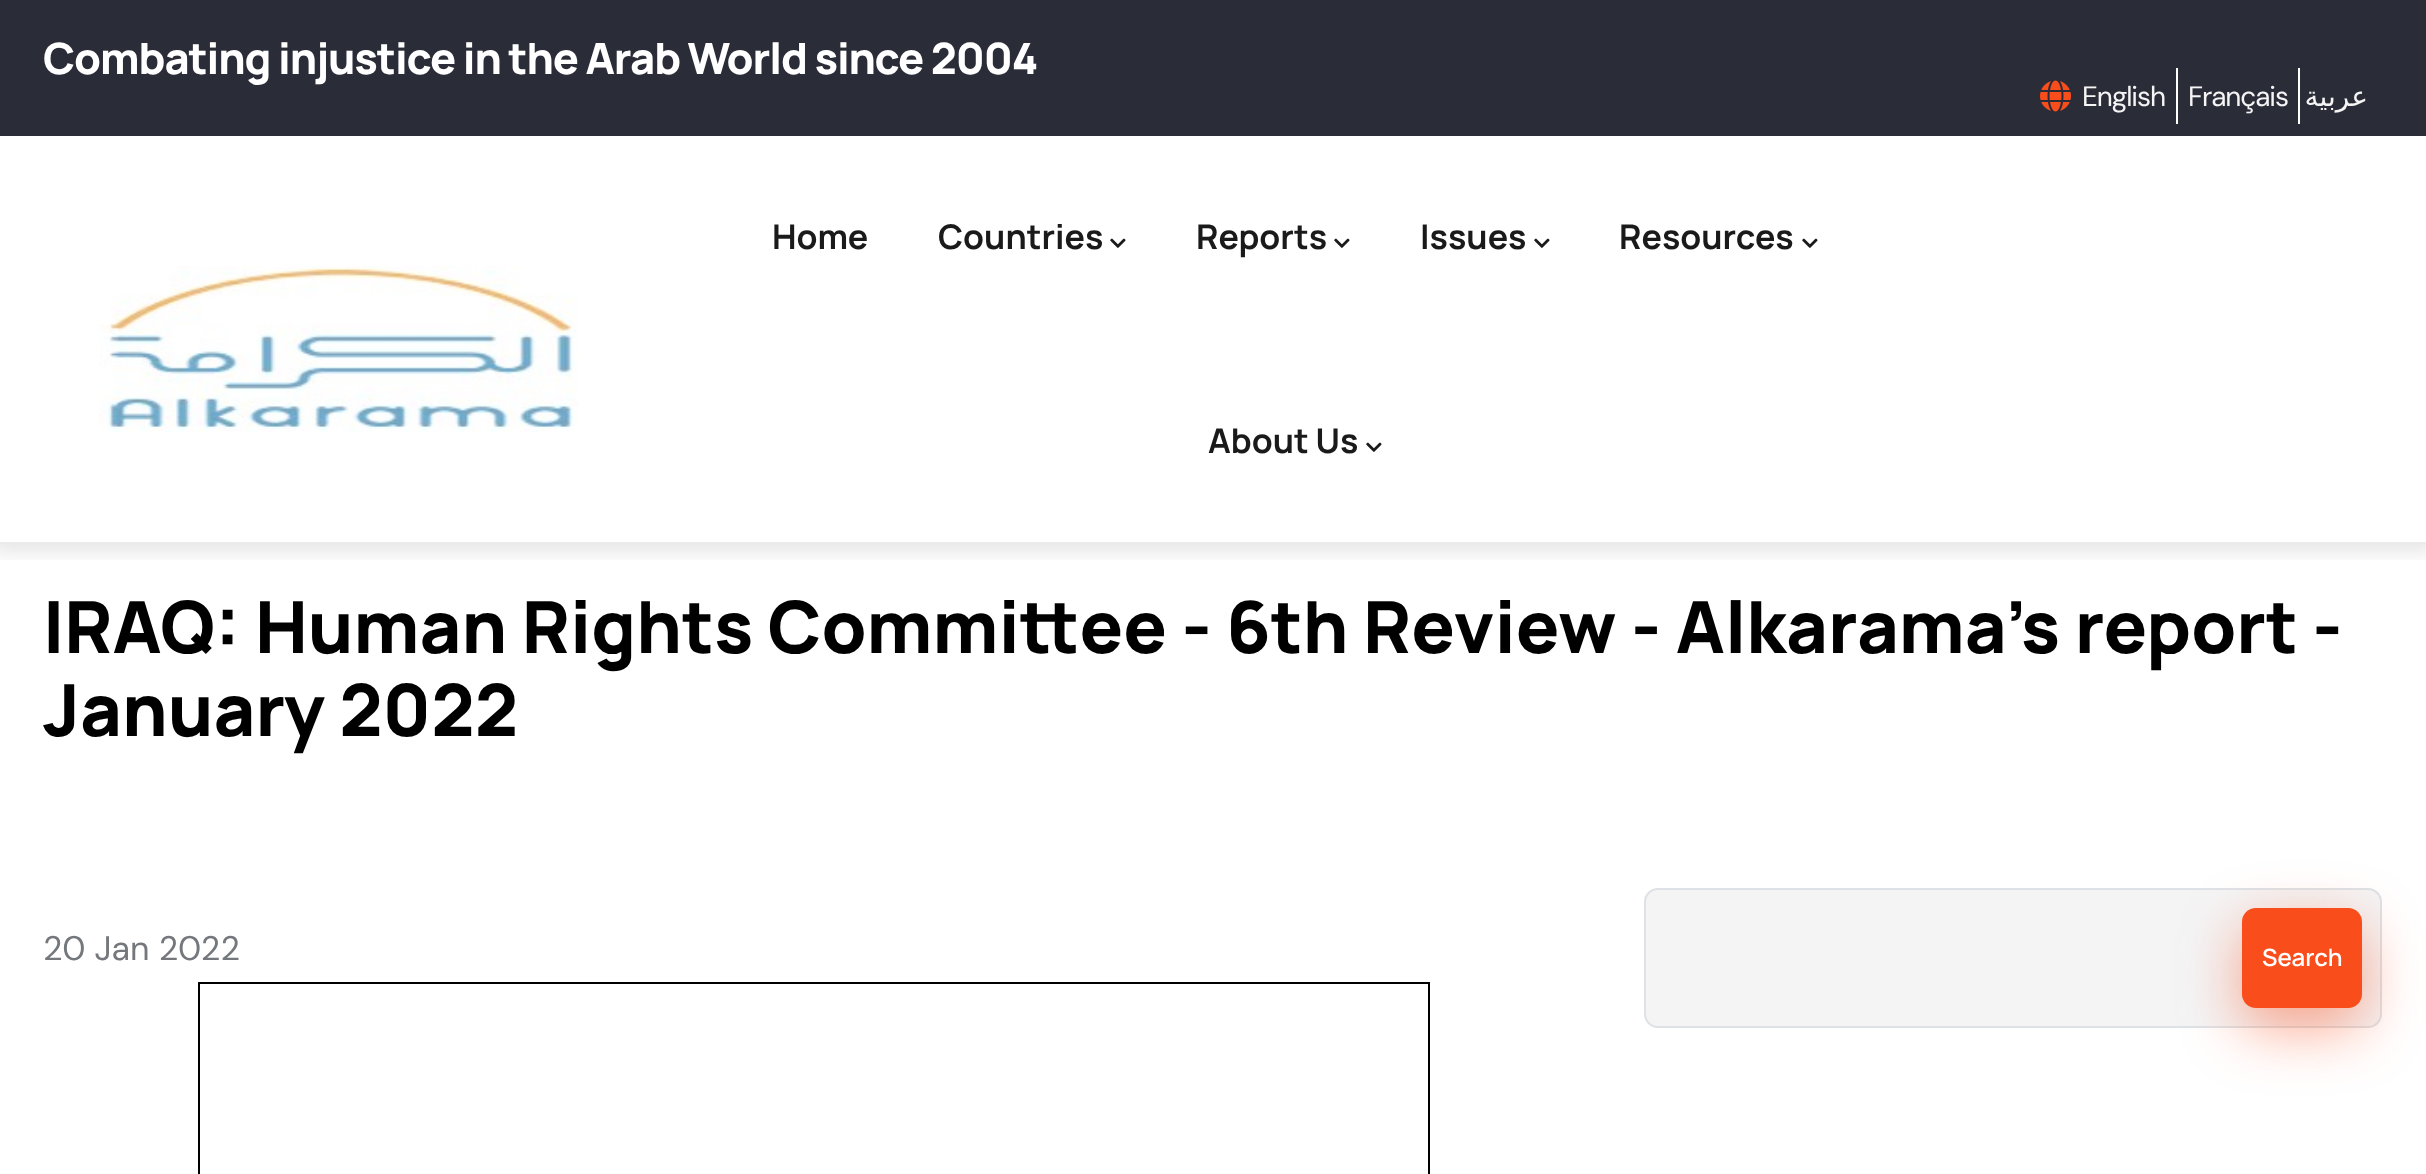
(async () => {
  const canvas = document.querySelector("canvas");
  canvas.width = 2426;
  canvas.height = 1174;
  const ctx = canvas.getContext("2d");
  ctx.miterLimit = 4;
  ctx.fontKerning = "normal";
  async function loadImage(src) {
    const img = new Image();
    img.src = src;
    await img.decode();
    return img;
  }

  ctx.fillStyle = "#ffffff";
  ctx.fillRect(0, 0, 2426, 1174);
  ctx.save();
  ctx.beginPath();
  ctx.rect(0, 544, 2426, 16);
  ctx.clip();
  ctx.fillStyle = "rgba(0, 0, 0, 0.1)";
  ctx.filter = "blur(10px)";
  ctx.beginPath();
  ctx.rect(-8, -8, 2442, 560);
  ctx.fill();
  ctx.filter = "none";
  ctx.restore();
  ctx.fillStyle = "#ebebeb";
  ctx.fillRect(0, 542, 2426, 2);
  ctx.fillStyle = "#2a2c38";
  ctx.fillRect(0, 0, 2426, 136);
  ctx.drawImage(await loadImage("img/1.png"), 2040, 80, 31, 32);
  ctx.fillStyle = "#ffffff";
  ctx.fillRect(2176, 68, 2, 56);
  ctx.fillRect(2298, 68, 2, 56);
  ctx.drawImage(await loadImage("img/2.png"), 98, 266, 480, 166);
  ctx.drawImage(await loadImage("img/3.png"), 1110, 238, 16, 10);
  ctx.drawImage(await loadImage("img/3.png"), 1334, 238, 16, 10);
  ctx.drawImage(await loadImage("img/3.png"), 1534, 238, 16, 10);
  ctx.drawImage(await loadImage("img/3.png"), 1802, 238, 16, 10);
  ctx.drawImage(await loadImage("img/3.png"), 1366, 442, 16, 10);
  ctx.strokeStyle = "#000000";
  ctx.lineWidth = 2;
  ctx.strokeRect(199, 983, 1230, 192);
  ctx.fillStyle = "#f4f4f5";
  ctx.beginPath();
  ctx.roundRect(1645, 889, 736, 138, 13);
  ctx.fill();
  ctx.strokeStyle = "#dee2e6";
  ctx.stroke();
  ctx.fillStyle = "rgba(249, 77, 28, 0.5)";
  ctx.filter = "blur(30px)";
  ctx.beginPath();
  ctx.roundRect(2242, 928, 120, 100, 14);
  ctx.fill();
  ctx.filter = "none";
  ctx.fillStyle = "#f94d1c";
  ctx.beginPath();
  ctx.roundRect(2242, 908, 120, 100, 14);
  ctx.fill();
  ctx.letterSpacing = "-1.1px";
  ctx.font = "800 43.2px Manrope";
  ctx.fillStyle = "#ffffff";
  ctx.fillText("Combating injustice in the Arab World since 2004", 43, 74);
  ctx.font = "28px DM Sans";
  ctx.fillStyle = "#f5f5f5";
  ctx.fillText("English", 2082, 106);
  ctx.fillText("Français", 2188, 106);
  ctx.direction = "rtl";
  ctx.font = "28px DejaVu Sans";
  ctx.fillText("عربية", 2368, 106);
  ctx.letterSpacing = "0px";
  ctx.direction = "ltr";
  ctx.font = "bold 34px Manrope";
  ctx.fillStyle = "#1a1a1a";
  for (const [text, x, y] of [
    ["Home", 772, 249],
    ["Countries", 938, 249],
    ["Reports", 1196, 249],
    ["Issues", 1420, 249],
    ["Resources", 1619, 249],
    ["About Us", 1208, 453],
  ]) {
    ctx.fillText(text, x, y);
  }
  ctx.font = "800 72px Manrope";
  ctx.fillStyle = "#000000";
  ctx.fillText("IRAQ: Human Rights Committee - 6th Review - Alkarama's report -", 43, 653);
  ctx.fillText("January 2022", 43, 736);
  ctx.font = "34px DM Sans";
  ctx.fillStyle = "#74787c";
  ctx.fillText("20 Jan 2022", 43, 960);
  ctx.font = "600 24px Manrope";
  ctx.fillStyle = "#ffffff";
  ctx.fillText("Search", 2262, 966);
})();
